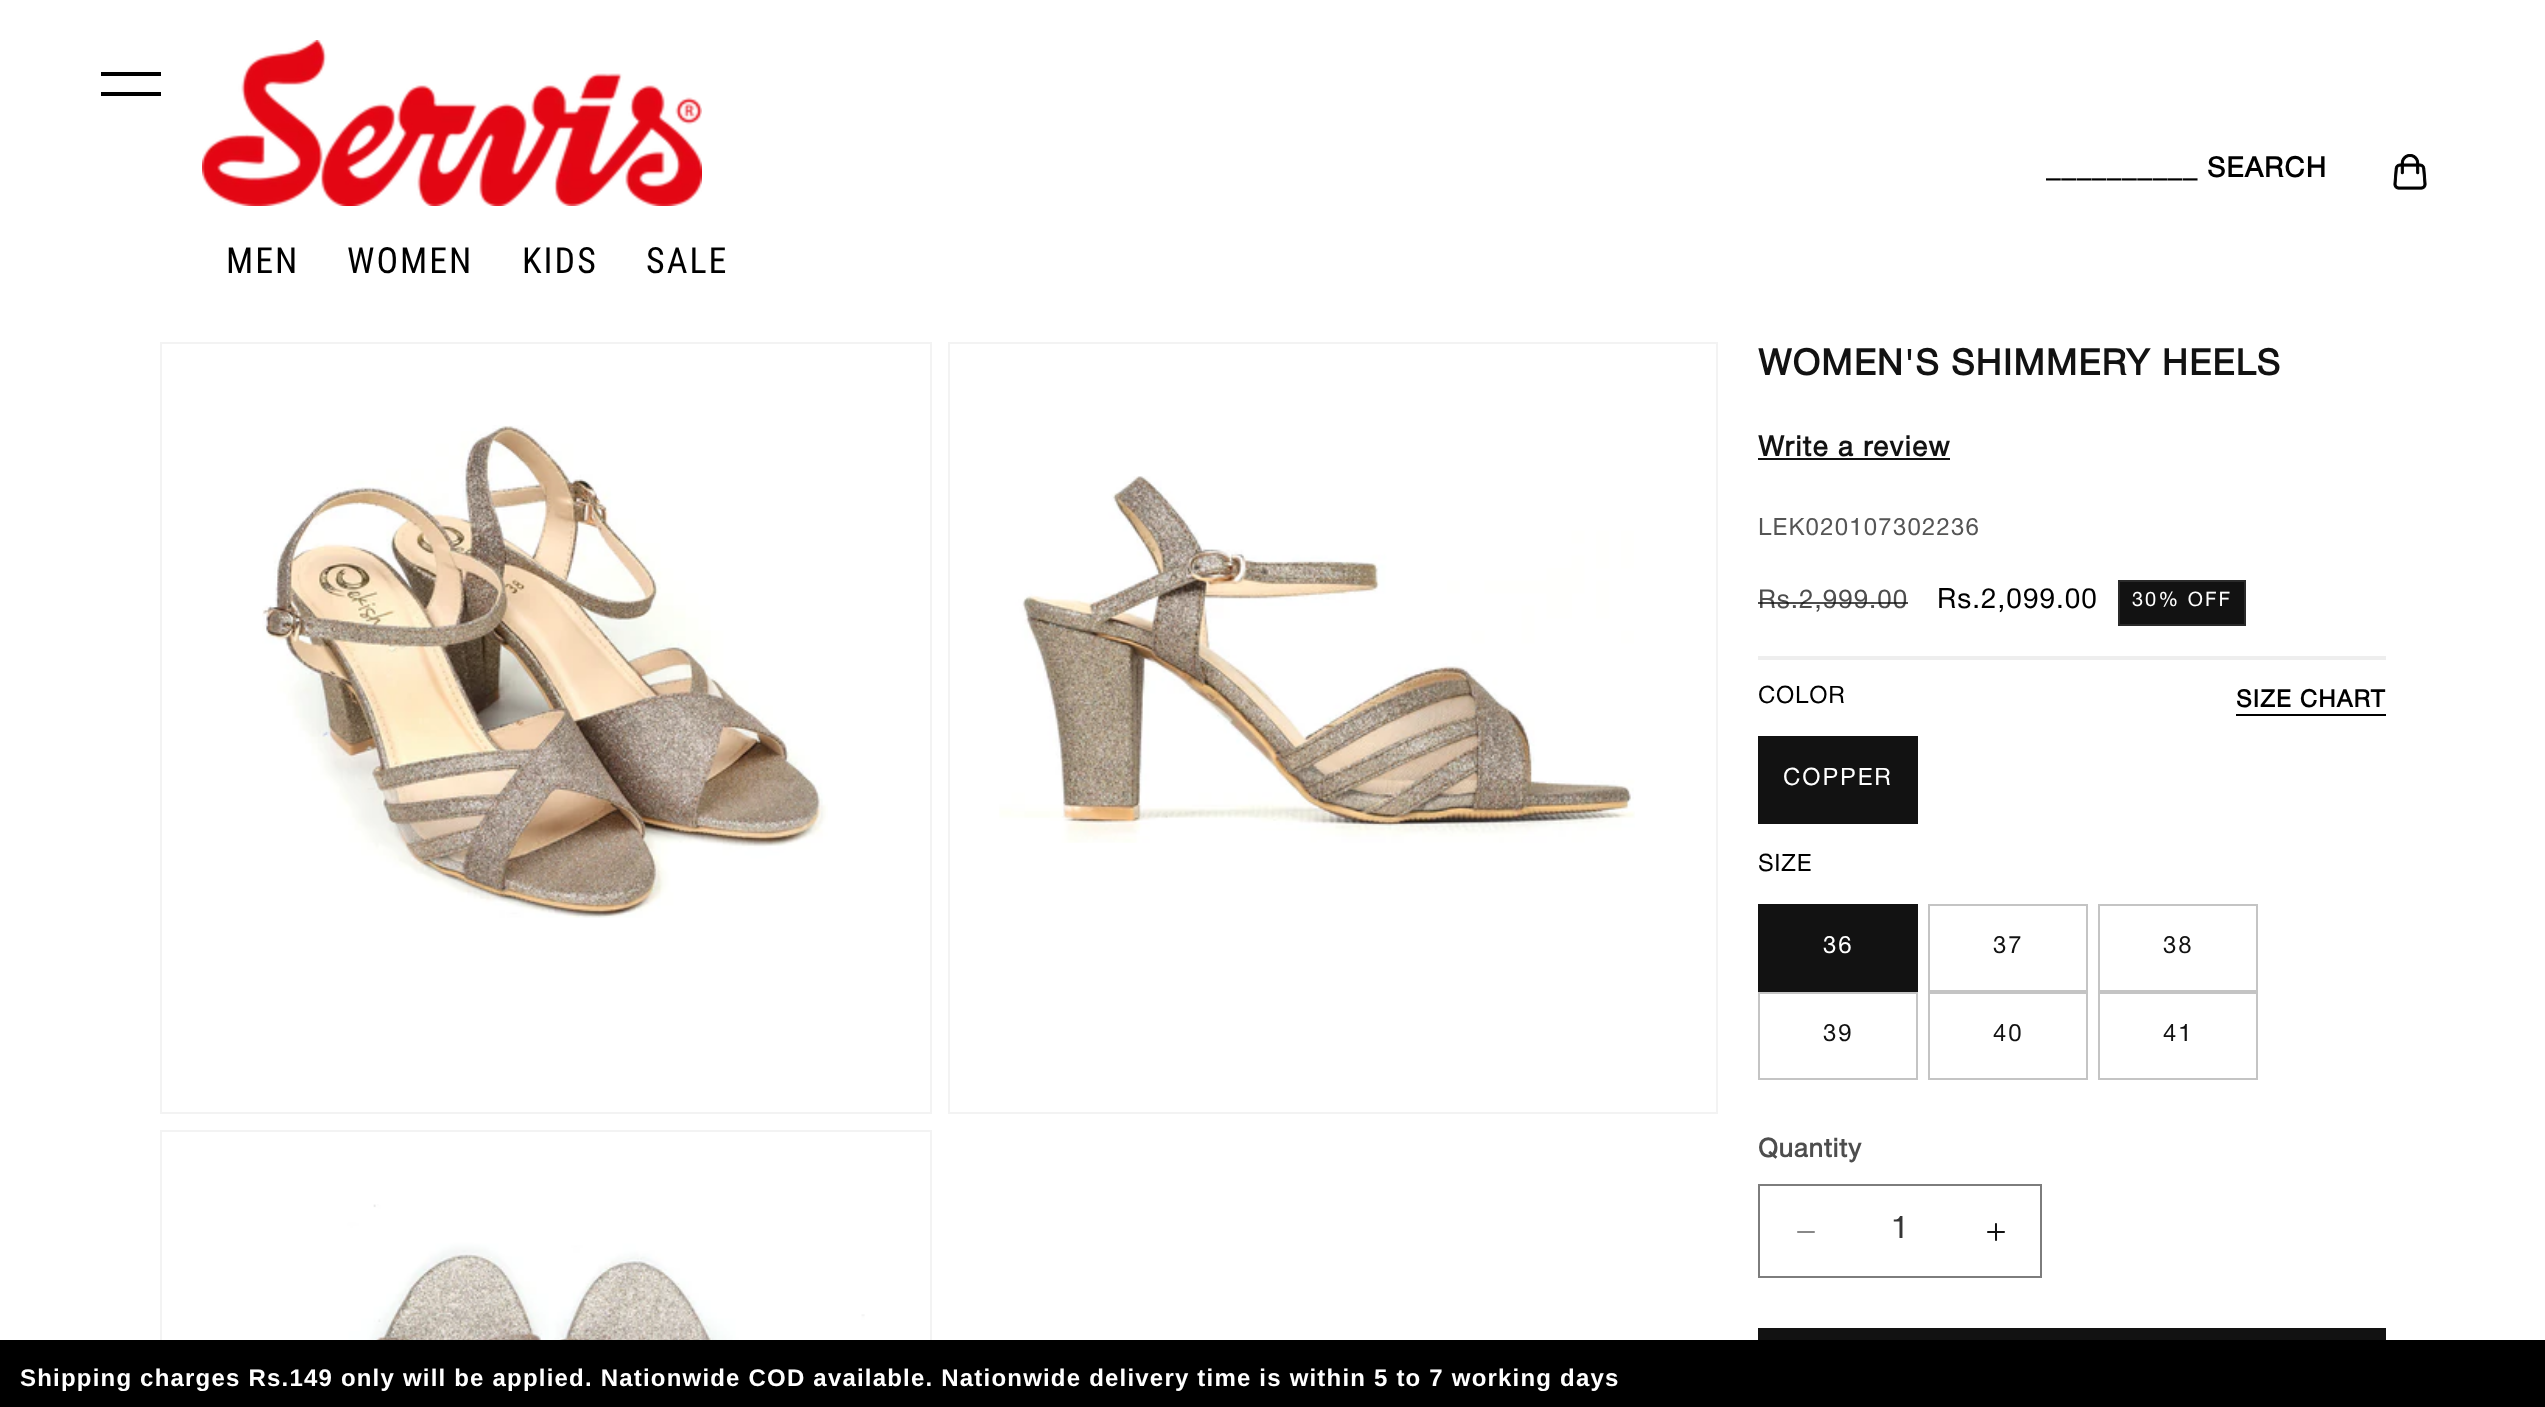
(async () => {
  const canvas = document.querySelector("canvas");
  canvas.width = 2545;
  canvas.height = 1407;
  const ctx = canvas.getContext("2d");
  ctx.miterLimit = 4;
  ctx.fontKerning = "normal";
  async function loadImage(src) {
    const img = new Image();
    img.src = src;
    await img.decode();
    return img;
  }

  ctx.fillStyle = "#ffffff";
  ctx.fillRect(0, 0, 2545, 1407);
  ctx.drawImage(await loadImage("img/1.png"), 2393, 154, 34, 36);
  ctx.fillStyle = "#000000";
  ctx.fillRect(101, 72, 60, 4);
  ctx.fillRect(101, 92, 60, 4);
  ctx.drawImage(await loadImage("img/2.png"), 202, 40, 500, 166);
  ctx.strokeStyle = "#f3f3f3";
  ctx.lineWidth = 2;
  ctx.strokeRect(161, 343, 770, 770);
  ctx.drawImage(await loadImage("img/3.png"), 262, 425, 566, 493);
  ctx.strokeRect(949, 343, 768, 770);
  ctx.drawImage(await loadImage("img/4.png"), 999, 476, 636, 367);
  ctx.strokeRect(161, 1131, 770, 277);
  ctx.drawImage(await loadImage("img/5.png"), 342, 1204, 523, 136);
  ctx.fillStyle = "#121212";
  ctx.fillRect(1758, 458, 192, 2);
  ctx.beginPath();
  ctx.rect(2119, 581, 126, 44);
  ctx.fill();
  ctx.strokeStyle = "#2a2a2a";
  ctx.stroke();
  for (const [x, y, w, h, color] of [
    [1758, 656, 628, 4, "#eeeeee"],
    [2236, 714, 150, 2, "#000000"],
    [1758, 736, 160, 88, "#121212"],
    [1758, 904, 160, 88, "#121212"],
  ]) {
    ctx.fillStyle = color;
    ctx.fillRect(x, y, w, h);
  }
  ctx.strokeStyle = "#c4c4c4";
  ctx.strokeRect(1929, 905, 158, 86);
  ctx.strokeRect(2099, 905, 158, 86);
  ctx.strokeRect(1759, 993, 158, 86);
  ctx.strokeRect(1929, 993, 158, 86);
  ctx.strokeRect(2099, 993, 158, 86);
  ctx.drawImage(await loadImage("img/6.png"), 1797, 1231, 18, 2);
  ctx.drawImage(await loadImage("img/7.png"), 1987, 1223, 18, 18);
  ctx.strokeStyle = "#7d7d7d";
  ctx.strokeRect(1759, 1185, 282, 92);
  ctx.fillRect(1758, 1328, 628, 12);
  ctx.fillStyle = "#000000";
  ctx.fillRect(0, 1340, 2545, 67);
  ctx.letterSpacing = "1.2px";
  ctx.font = "bold 28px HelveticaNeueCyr";
  ctx.fillText("__________ SEARCH", 2046, 177);
  ctx.letterSpacing = "2px";
  ctx.font = "36px Roboto Condensed";
  for (const [text, x, y] of [
    ["MEN", 226, 273],
    ["WOMEN", 347, 273],
    ["KIDS", 522, 273],
    ["SALE", 646, 273],
  ]) {
    ctx.fillText(text, x, y);
  }
  ctx.letterSpacing = "1.2px";
  ctx.font = "bold 36px HelveticaNeueCyr";
  ctx.fillStyle = "#121212";
  ctx.fillText("WOMEN'S SHIMMERY HEELS", 1758, 375);
  ctx.font = "bold 28px HelveticaNeueCyr";
  ctx.fillText("Write a review", 1758, 456);
  ctx.font = "24px HelveticaNeueCyr";
  ctx.fillStyle = "#555555";
  ctx.fillText("LEK020107302236", 1758, 535);
  ctx.letterSpacing = "1px";
  ctx.font = "26px HelveticaNeueCyr";
  ctx.fillStyle = "#4d4d4d";
  ctx.fillText("Rs.2,999.00", 1758, 608);
  ctx.fillStyle = "rgba(18, 18, 18, 0.75)";
  ctx.fillRect(1758, 602, 150, 2);
  ctx.font = "28px HelveticaNeueCyr";
  ctx.fillStyle = "#000000";
  ctx.fillText("Rs.2,099.00", 1937, 608);
  ctx.letterSpacing = "2px";
  ctx.font = "20px HelveticaNeueCyr";
  ctx.fillStyle = "#ffffff";
  ctx.fillText("30% OFF", 2132, 606);
  ctx.letterSpacing = "0.75px";
  ctx.font = "24px HelveticaNeueCyr";
  ctx.fillStyle = "#000000";
  ctx.fillText("COLOR", 1758, 703);
  ctx.letterSpacing = "1.2px";
  ctx.font = "bold 24px HelveticaNeueCyr";
  ctx.fillText("SIZE CHART", 2236, 707);
  ctx.letterSpacing = "2px";
  ctx.font = "24px HelveticaNeueCyr";
  ctx.fillStyle = "#ffffff";
  ctx.fillText("COPPER", 1783, 785);
  ctx.letterSpacing = "0.75px";
  ctx.fillStyle = "#000000";
  ctx.fillText("SIZE", 1758, 871);
  ctx.letterSpacing = "2px";
  ctx.fillStyle = "#ffffff";
  ctx.fillText("36", 1823, 953);
  ctx.fillStyle = "#121212";
  for (const [text, x, y] of [
    ["37", 1993, 953],
    ["38", 2163, 953],
    ["39", 1823, 1041],
    ["40", 1993, 1041],
    ["41", 2163, 1041],
  ]) {
    ctx.fillText(text, x, y);
  }
  ctx.letterSpacing = "0.75px";
  ctx.font = "bold 26px HelveticaNeueCyr";
  ctx.fillStyle = "#4d4d4d";
  ctx.fillText("Quantity", 1758, 1157);
  ctx.save();
  ctx.beginPath();
  ctx.rect(1860, 1216, 80, 30);
  ctx.clip();
  ctx.letterSpacing = "0px";
  ctx.font = "32px HelveticaNeueCyr";
  ctx.fillStyle = "#363636";
  ctx.fillText("1", 1891, 1238);
  ctx.restore();
  ctx.letterSpacing = "1.2px";
  ctx.font = "bold 24px Liberation Sans";
  ctx.fillStyle = "#ffffff";
  ctx.fillText("Shipping charges Rs.149 only will be applied. Nationwide COD available. Nationwide delivery time is within 5 to 7 working days", 20, 1386);
})();
